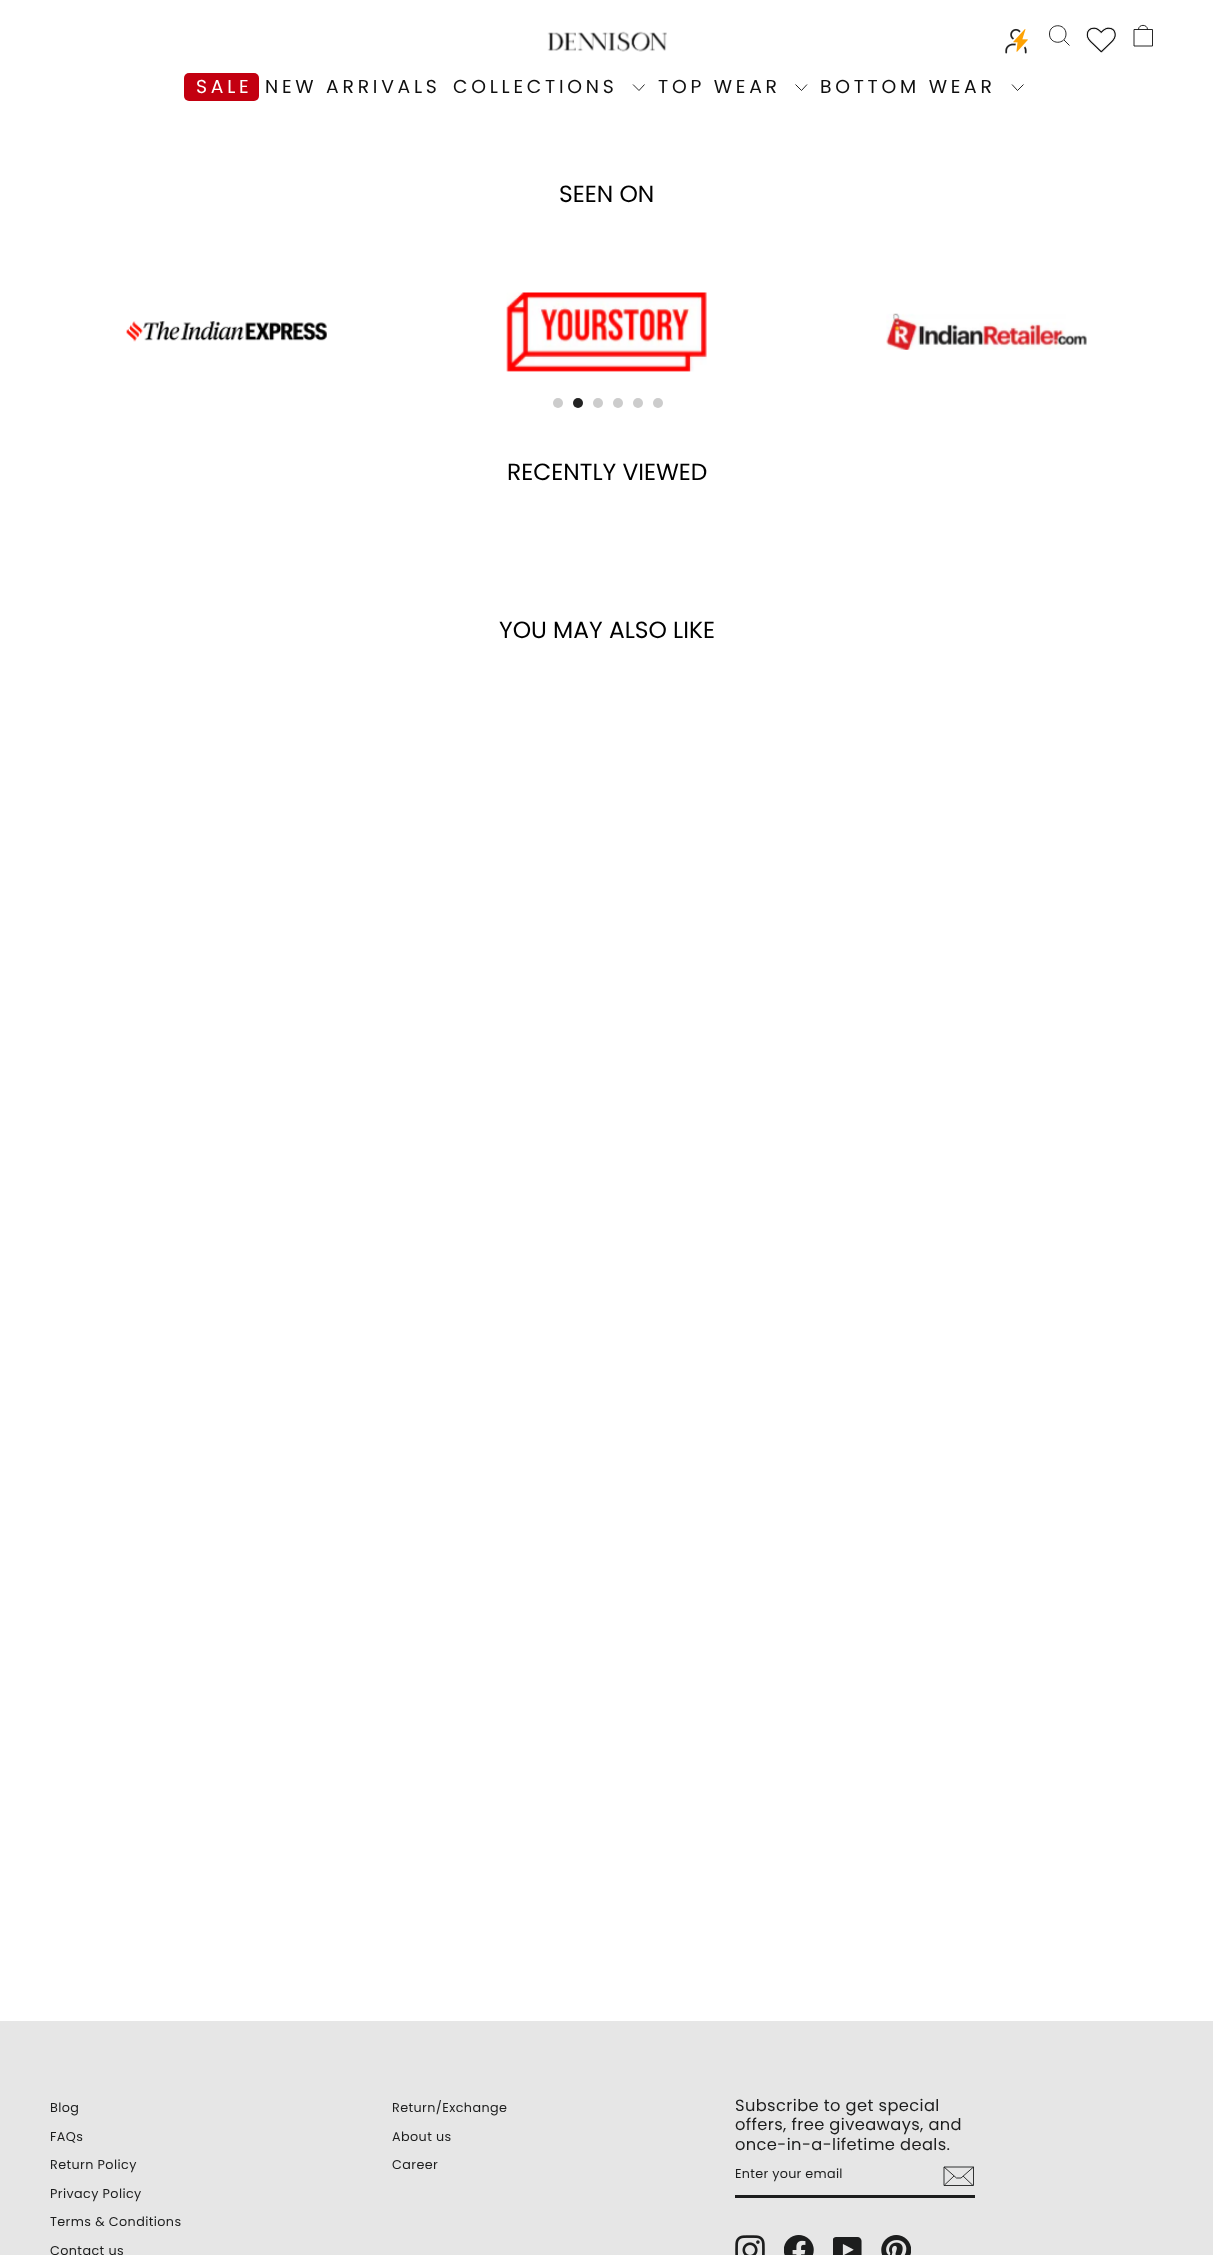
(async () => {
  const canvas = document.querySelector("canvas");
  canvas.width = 1213;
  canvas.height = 2255;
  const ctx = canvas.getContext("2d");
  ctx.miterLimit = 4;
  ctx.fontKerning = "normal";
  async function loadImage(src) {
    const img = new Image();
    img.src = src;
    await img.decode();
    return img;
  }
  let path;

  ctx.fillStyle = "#ffffff";
  ctx.fillRect(0, 0, 1213, 2255);
  ctx.drawImage(await loadImage("img/1.png"), 547, 31, 120, 21);
  ctx.drawImage(await loadImage("img/2.png"), 1005, 28, 23, 26);
  path = new Path2D("M1066 34C1066 45 1049.5 45 1049.5 34C1049.5 23 1066 23 1066 34ZM1069.5 45.5L1064 40");
  ctx.strokeStyle = "#0f0f0f";
  ctx.lineWidth = 0.9;
  ctx.stroke(path);
  ctx.drawImage(await loadImage("img/3.png"), 1086, 27, 30, 26);
  path = new Path2D("M1134 29.5H1152.5V46H1134ZM1138.5 29.5C1138.5 24 1147.5 24 1147.5 29.5");
  ctx.stroke(path);
  ctx.fillStyle = "#c30010";
  ctx.beginPath();
  ctx.roundRect(184, 73, 75, 28, 5);
  ctx.fill();
  path = new Path2D("M633 84.5L639 90.5L644.5 84.5");
  ctx.stroke(path);
  path = new Path2D("M795.5 84.5L801.5 90.5L807 84.5");
  ctx.stroke(path);
  path = new Path2D("M1012 84.5L1017.5 90.5L1023.5 84.5");
  ctx.stroke(path);
  ctx.drawImage(await loadImage("img/4.png"), 126, 321, 201, 21);
  ctx.drawImage(await loadImage("img/5.png"), 506, 292, 201, 80);
  ctx.drawImage(await loadImage("img/6.png"), 886, 313, 201, 37);
  ctx.fillStyle = "#cccccc";
  ctx.beginPath();
  ctx.arc(558, 403, 5, 0, Math.PI * 2);
  ctx.fill();
  ctx.fillStyle = "#222222";
  ctx.beginPath();
  ctx.arc(578, 403, 5, 0, Math.PI * 2);
  ctx.fill();
  ctx.fillStyle = "#cccccc";
  ctx.beginPath();
  ctx.arc(598, 403, 5, 0, Math.PI * 2);
  ctx.fill();
  ctx.beginPath();
  ctx.arc(618, 403, 5, 0, Math.PI * 2);
  ctx.fill();
  ctx.beginPath();
  ctx.arc(638, 403, 5, 0, Math.PI * 2);
  ctx.fill();
  ctx.beginPath();
  ctx.arc(658, 403, 5, 0, Math.PI * 2);
  ctx.fill();
  ctx.fillStyle = "#e6e6e6";
  ctx.fillRect(0, 2021, 1213, 234);
  ctx.fillStyle = "#1c1d1d";
  ctx.fillRect(735, 2195, 240, 3);
  path = new Path2D("M973.5 2185.5H944V2167H973.5ZM944 2167L956.5 2178H961L973.5 2167M954 2176L944.5 2185M973 2185.5L963 2176");
  ctx.strokeStyle = "#1c1d1d";
  ctx.stroke(path);
  ctx.drawImage(await loadImage("img/7.png"), 735, 2235, 30, 20);
  ctx.drawImage(await loadImage("img/8.png"), 784, 2235, 30, 20);
  ctx.drawImage(await loadImage("img/9.png"), 833, 2237, 29, 18);
  ctx.drawImage(await loadImage("img/10.png"), 881, 2235, 30, 20);
  ctx.letterSpacing = "3.75px";
  ctx.font = "18.75px Poppins";
  ctx.fillStyle = "#ffffff";
  ctx.fillText("SALE", 196, 93);
  ctx.fillStyle = "#0f0f0f";
  for (const [text, x, y] of [
    ["NEW ARRIVALS", 265, 93],
    ["COLLECTIONS", 453, 93],
    ["TOP WEAR", 658, 93],
    ["BOTTOM WEAR", 820, 93],
  ]) {
    ctx.fillText(text, x, y);
  }
  ctx.letterSpacing = "0px";
  ctx.font = "23.4px Poppins";
  ctx.fillStyle = "#000000";
  for (const [text, x, y] of [
    ["SEEN ON", 559, 202],
    ["RECENTLY VIEWED", 507, 480],
    ["YOU MAY ALSO LIKE", 499, 638],
  ]) {
    ctx.fillText(text, x, y);
  }
  ctx.letterSpacing = "0.4px";
  ctx.font = "12.75px Poppins";
  ctx.fillStyle = "#1c1d1d";
  for (const [text, x, y] of [
    ["Blog", 50, 2112],
    ["FAQs", 50, 2141],
    ["Return Policy", 50, 2169],
    ["Privacy Policy", 50, 2198],
    ["Terms & Conditions", 50, 2226],
    ["Contact us", 50, 2255],
    ["Return/Exchange", 392, 2112],
    ["About us", 392, 2141],
    ["Career", 392, 2169],
  ]) {
    ctx.fillText(text, x, y);
  }
  ctx.font = "16.25px Poppins";
  for (const [text, x, y] of [
    ["Subscribe to get special", 735, 2111],
    ["offers, free giveaways, and", 735, 2130],
    ["once-in-a-lifetime deals.", 735, 2150],
  ]) {
    ctx.fillText(text, x, y);
  }
  ctx.letterSpacing = "0.3px";
  ctx.font = "12.75px Poppins";
  ctx.fillText("Enter your email", 735, 2178);
})();
